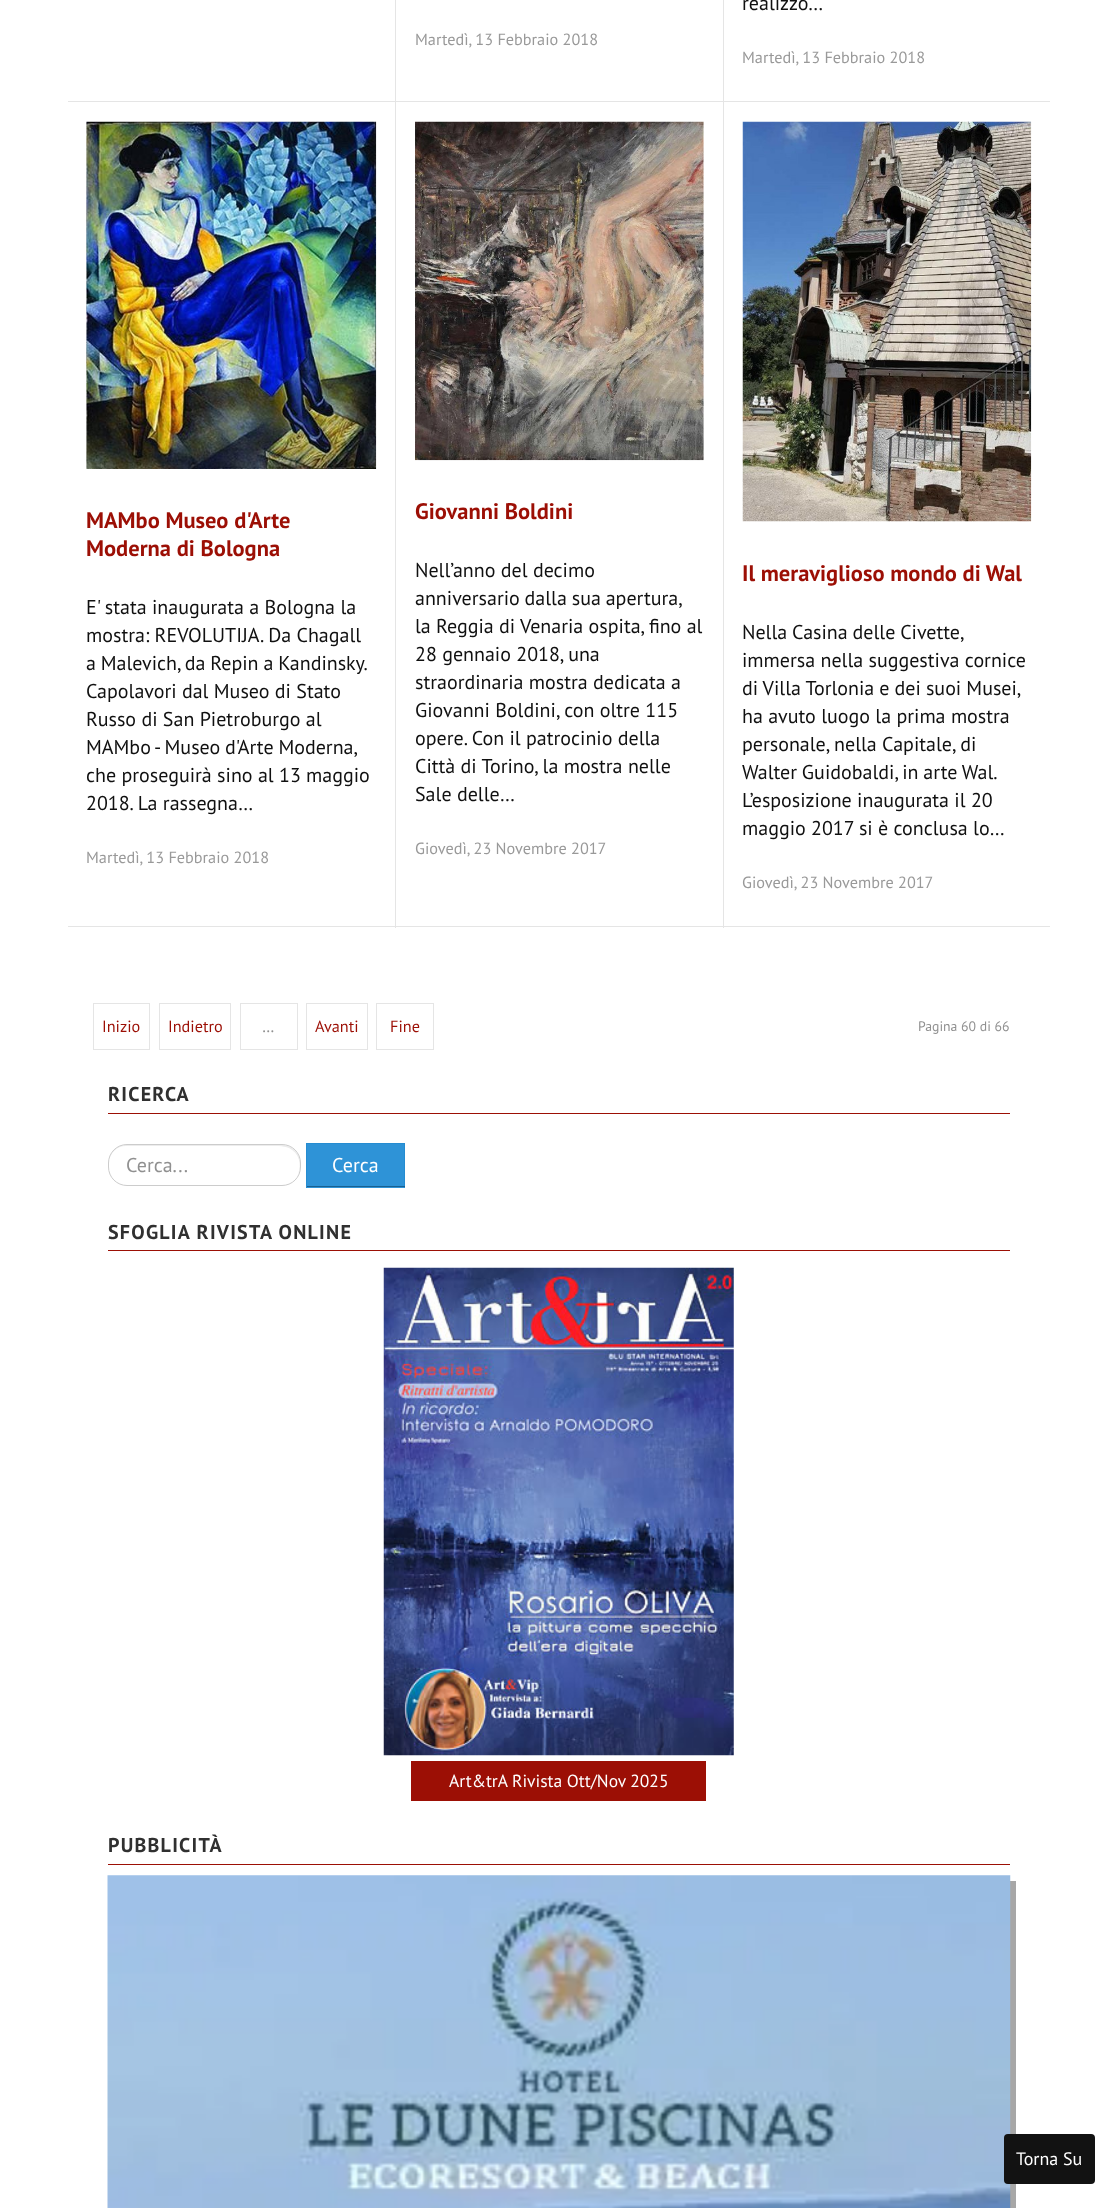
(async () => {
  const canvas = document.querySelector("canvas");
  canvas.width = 1119;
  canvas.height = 2208;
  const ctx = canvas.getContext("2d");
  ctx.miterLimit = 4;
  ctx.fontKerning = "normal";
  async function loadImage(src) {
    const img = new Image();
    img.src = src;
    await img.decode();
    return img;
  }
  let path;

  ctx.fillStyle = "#ffffff";
  ctx.fillRect(0, 0, 1119, 2208);
  for (const [x, y, w, h, color] of [
    [68, 101, 982, 1, "#e5e5e5"],
    [395, 0, 1, 103, "#e5e5e5"],
    [723, 0, 1, 103, "#e5e5e5"],
    [68, 926, 982, 1, "#e5e5e5"],
  ]) {
    ctx.fillStyle = color;
    ctx.fillRect(x, y, w, h);
  }
  ctx.drawImage(await loadImage("img/1.png"), 86, 121, 291, 348);
  ctx.fillRect(395, 103, 1, 825);
  ctx.drawImage(await loadImage("img/2.png"), 415, 121, 289, 340);
  ctx.fillRect(723, 103, 1, 825);
  ctx.drawImage(await loadImage("img/3.png"), 742, 121, 290, 401);
  ctx.strokeStyle = "#e5e5e5";
  ctx.strokeRect(93.5, 1003.5, 56, 46);
  ctx.strokeRect(159.5, 1003.5, 71, 46);
  ctx.strokeRect(240.5, 1003.5, 57, 46);
  ctx.strokeRect(306.5, 1003.5, 61, 46);
  ctx.strokeRect(376.5, 1003.5, 57, 46);
  ctx.fillStyle = "#9c0f05";
  ctx.fillRect(108, 1113, 902, 1);
  ctx.fillStyle = "#ececec";
  path = new Path2D("M126 1146H279C282 1146 286 1147 289 1148C299 1153 302 1164 298 1174C299 1172 300 1170 300 1167V1163C300 1153 292 1145 282 1145H127C118 1145 111 1151 109 1159C112 1152 117 1146 126 1146Z");
  ctx.fill(path);
  ctx.beginPath();
  ctx.roundRect(108.5, 1144.5, 192, 41, 18.5);
  ctx.strokeStyle = "#cccccc";
  ctx.stroke();
  for (const [x, y, w, h, color] of [
    [307, 1144, 97, 44, "#2e93d7"],
    [306, 1143, 99, 1, "#258cd1"],
    [404, 1143, 1, 45, "#258cd1"],
    [306, 1186, 99, 1, "#196090"],
    [306, 1143, 1, 45, "#258cd1"],
    [108, 1250, 902, 1, "#9c0f05"],
  ]) {
    ctx.fillStyle = color;
    ctx.fillRect(x, y, w, h);
  }
  ctx.drawImage(await loadImage("img/4.png"), 383, 1267, 351, 489);
  ctx.fillRect(411, 1761, 295, 40);
  ctx.fillRect(108, 1864, 902, 1);
  ctx.fillStyle = "#a7a7a7";
  path = new Path2D("M114 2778V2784H1016V1881H1010V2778Z");
  ctx.fill(path);
  ctx.drawImage(await loadImage("img/5.png"), 107, 1875, 904, 333);
  ctx.fillStyle = "#121212";
  ctx.beginPath();
  ctx.roundRect(1004, 2134, 91, 50, 4);
  ctx.fill();
  ctx.font = "16.25px PT Sans";
  ctx.fillStyle = "#999999";
  ctx.fillText("Martedì, 13 Febbraio 2018", 415, 45);
  ctx.font = "20px PT Sans";
  ctx.fillStyle = "#101010";
  ctx.fillText("realizzò…", 742, 10);
  ctx.font = "16.25px PT Sans";
  ctx.fillStyle = "#999999";
  ctx.fillText("Martedì, 13 Febbraio 2018", 742, 63);
  ctx.font = "bold 22.5px PT Sans";
  ctx.fillStyle = "#9c0f05";
  ctx.fillText("MAMbo Museo d'Arte", 86, 528);
  ctx.fillText("Moderna di Bologna", 86, 556);
  ctx.font = "20px PT Sans";
  ctx.fillStyle = "#101010";
  ctx.fillText("E' stata inaugurata a Bologna la", 86, 614);
  ctx.fillText("mostra: REVOLUTIJA. Da Chagall", 86, 642);
  ctx.wordSpacing = "-0.5px";
  ctx.fillText("a Malevich, da Repin a Kandinsky.", 86, 670);
  ctx.wordSpacing = "0px";
  ctx.fillText("Capolavori dal Museo di Stato", 86, 698);
  ctx.fillText("Russo di San Pietroburgo al", 86, 726);
  ctx.wordSpacing = "-0.5px";
  ctx.fillText("MAMbo - Museo d'Arte Moderna,", 86, 754);
  ctx.wordSpacing = "0px";
  ctx.fillText("che proseguirà sino al 13 maggio", 86, 782);
  ctx.fillText("2018. La rassegna…", 86, 810);
  ctx.font = "16.25px PT Sans";
  ctx.fillStyle = "#999999";
  ctx.fillText("Martedì, 13 Febbraio 2018", 86, 863);
  ctx.font = "bold 22.5px PT Sans";
  ctx.fillStyle = "#9c0f05";
  ctx.fillText("Giovanni Boldini", 415, 519);
  ctx.font = "20px PT Sans";
  ctx.fillStyle = "#101010";
  ctx.fillText("Nell’anno del decimo", 415, 577);
  ctx.wordSpacing = "-0.5px";
  ctx.fillText("anniversario dalla sua apertura,", 415, 605);
  ctx.wordSpacing = "0px";
  for (const [text, x, y] of [
    ["la Reggia di Venaria ospita, fino al", 415, 633],
    ["28 gennaio 2018, una", 415, 661],
    ["straordinaria mostra dedicata a", 415, 689],
    ["Giovanni Boldini, con oltre 115", 415, 717],
    ["opere. Con il patrocinio della", 415, 745],
    ["Città di Torino, la mostra nelle", 415, 773],
    ["Sale delle…", 415, 801],
  ]) {
    ctx.fillText(text, x, y);
  }
  ctx.font = "16.25px PT Sans";
  ctx.fillStyle = "#999999";
  ctx.fillText("Giovedì, 23 Novembre 2017", 415, 854);
  ctx.font = "bold 22.5px PT Sans";
  ctx.fillStyle = "#9c0f05";
  ctx.fillText("Il meraviglioso mondo di Wal", 742, 581);
  ctx.wordSpacing = "-0.5px";
  ctx.font = "20px PT Sans";
  ctx.fillStyle = "#101010";
  ctx.fillText("Nella Casina delle Civette,", 742, 639);
  ctx.wordSpacing = "0px";
  ctx.fillText("immersa nella suggestiva cornice", 742, 667);
  ctx.wordSpacing = "-0.25px";
  ctx.fillText("di Villa Torlonia e dei suoi Musei,", 742, 695);
  ctx.wordSpacing = "0px";
  ctx.fillText("ha avuto luogo la prima mostra", 742, 723);
  ctx.fillText("personale, nella Capitale, di", 742, 751);
  ctx.wordSpacing = "-0.5px";
  ctx.fillText("Walter Guidobaldi, in arte Wal.", 742, 779);
  ctx.wordSpacing = "0px";
  ctx.fillText("L’esposizione inaugurata il 20", 742, 807);
  ctx.fillText("maggio 2017 si è conclusa lo…", 742, 835);
  ctx.font = "16.25px PT Sans";
  ctx.fillStyle = "#999999";
  ctx.fillText("Giovedì, 23 Novembre 2017", 742, 888);
  ctx.fillStyle = "#9c0f05";
  ctx.fillText("Inizio", 102, 1032);
  ctx.fillText("Indietro", 168, 1032);
  ctx.fillStyle = "#909090";
  ctx.fillText("…", 262, 1032);
  ctx.fillStyle = "#9c0f05";
  ctx.fillText("Avanti", 315, 1032);
  ctx.fillText("Fine", 390, 1032);
  ctx.font = "13.75px PT Sans";
  ctx.fillStyle = "#909090";
  ctx.fillText("Pagina 60 di 66", 918, 1031);
  ctx.letterSpacing = "1.25px";
  ctx.font = "bold 20px PT Sans";
  ctx.fillStyle = "#303030";
  ctx.fillText("RICERCA", 108, 1101);
  ctx.letterSpacing = "0px";
  ctx.font = "20px PT Sans";
  ctx.fillStyle = "#909090";
  ctx.fillText("Cerca...", 126, 1172);
  ctx.fillStyle = "#ffffff";
  ctx.fillText("Cerca", 332, 1172);
  ctx.letterSpacing = "1.25px";
  ctx.font = "bold 20px PT Sans";
  ctx.fillStyle = "#303030";
  ctx.fillText("SFOGLIA RIVISTA ONLINE", 108, 1239);
  ctx.letterSpacing = "0px";
  ctx.font = "17.5px PT Sans";
  ctx.fillStyle = "#ffffff";
  ctx.fillText("Art&trA Rivista Ott/Nov 2025", 449, 1787);
  ctx.letterSpacing = "1.25px";
  ctx.font = "bold 20px PT Sans";
  ctx.fillStyle = "#303030";
  ctx.fillText("PUBBLICITÀ", 108, 1852);
  ctx.letterSpacing = "0px";
  ctx.font = "18px PT Sans";
  ctx.fillStyle = "#ffffff";
  ctx.fillText("Torna Su", 1016, 2165);
})();
